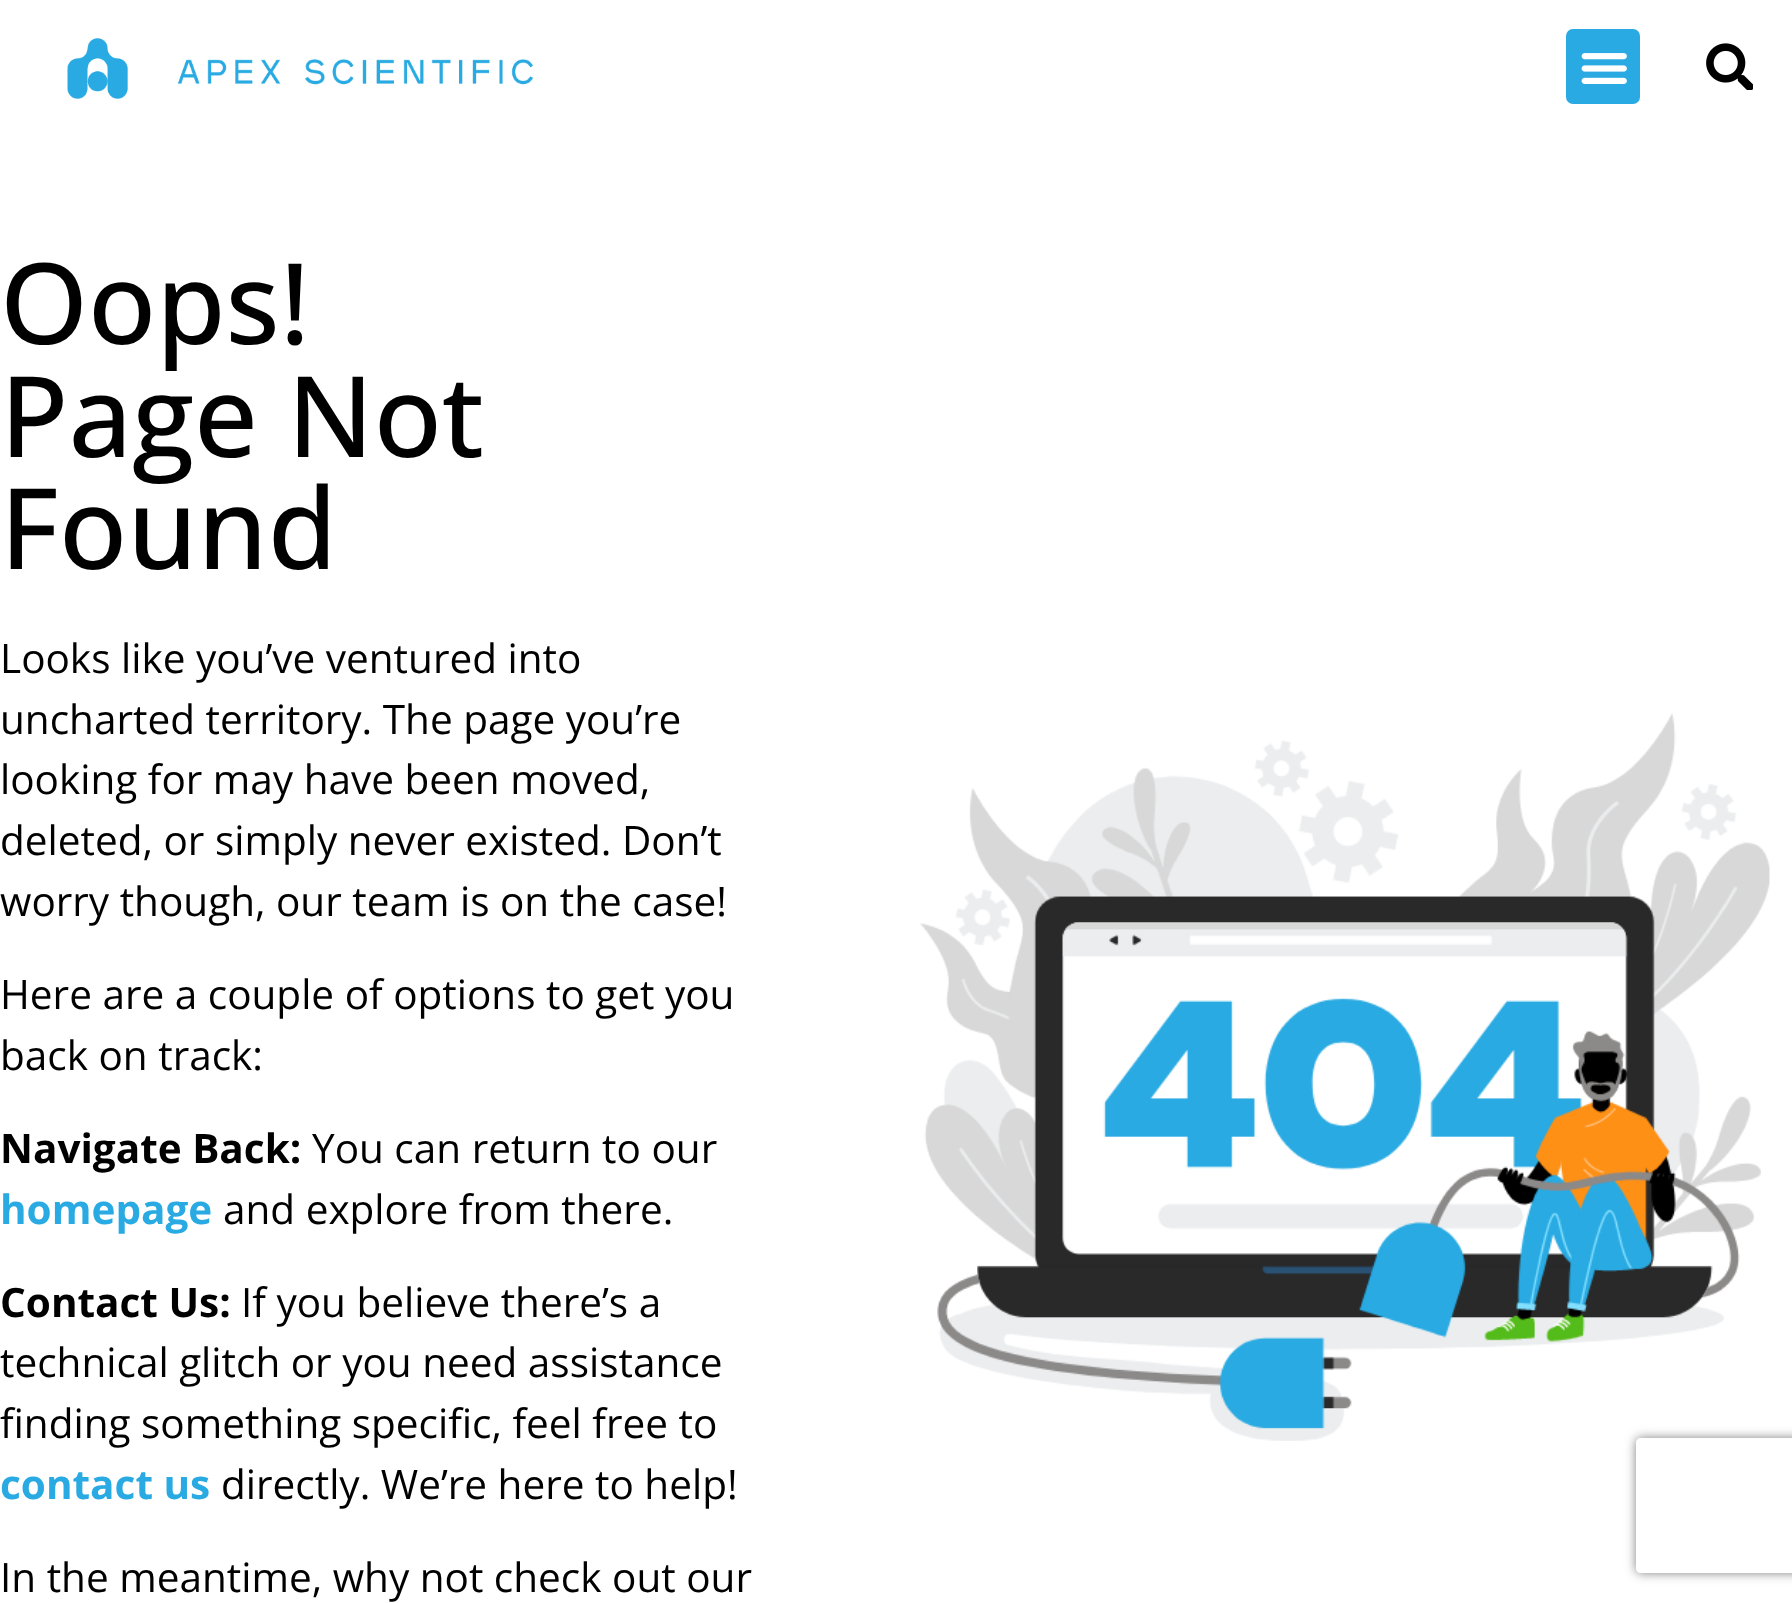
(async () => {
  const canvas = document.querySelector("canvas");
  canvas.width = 1792;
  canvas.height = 1603;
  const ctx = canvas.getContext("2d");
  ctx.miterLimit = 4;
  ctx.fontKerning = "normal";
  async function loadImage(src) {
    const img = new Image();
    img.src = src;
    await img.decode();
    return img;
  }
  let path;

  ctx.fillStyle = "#ffffff";
  ctx.fillRect(0, 0, 1792, 1603);
  ctx.drawImage(await loadImage("img/1.png"), 67, 38, 467, 61);
  ctx.fillStyle = "#29aae2";
  ctx.beginPath();
  ctx.roundRect(1566, 29, 74, 75, 7);
  ctx.fill();
  ctx.drawImage(await loadImage("img/2.png"), 1581, 53, 46, 31);
  ctx.drawImage(await loadImage("img/3.png"), 1706, 43, 47, 47);
  ctx.drawImage(await loadImage("img/4.png"), 920, 713, 850, 728);
  ctx.save();
  path = new Path2D("M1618 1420H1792V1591H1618ZM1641 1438H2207C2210 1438 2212 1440 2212 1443V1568C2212 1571 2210 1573 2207 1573H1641C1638 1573 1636 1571 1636 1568V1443C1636 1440 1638 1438 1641 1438Z");
  ctx.clip(path, "evenodd");
  ctx.fillStyle = "#808080";
  ctx.filter = "blur(5.5px)";
  ctx.beginPath();
  ctx.roundRect(1636, 1438, 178, 135, 5);
  ctx.fill();
  ctx.filter = "none";
  ctx.restore();
  ctx.font = "500 112.5px Open Sans";
  ctx.fillStyle = "#000000";
  for (const [text, x, y] of [
    ["Oops!", 0, 344],
    ["Page Not", 0, 457],
    ["Found", 0, 569],
  ]) {
    ctx.fillText(text, x, y);
  }
  ctx.font = "40.5px Open Sans";
  for (const [text, x, y] of [
    ["Looks like you’ve ventured into", 0, 673],
    ["uncharted territory. The page you’re", 0, 734],
    ["looking for may have been moved,", 0, 794],
    ["deleted, or simply never existed. Don’t", 0, 855],
    ["worry though, our team is on the case!", 0, 916],
    ["Here are a couple of options to get you", 0, 1009],
    ["back on track:", 0, 1070],
  ]) {
    ctx.fillText(text, x, y);
  }
  ctx.font = "bold 40.5px Open Sans";
  ctx.fillText("Navigate Back:", 0, 1163);
  ctx.font = "40.5px Open Sans";
  ctx.fillText("You can return to our", 312, 1163);
  ctx.font = "bold 40.5px Open Sans";
  ctx.fillStyle = "#29aae2";
  ctx.fillText("homepage", 0, 1224);
  ctx.font = "40.5px Open Sans";
  ctx.fillStyle = "#000000";
  ctx.fillText("and explore from there.", 223, 1224);
  ctx.font = "bold 40.5px Open Sans";
  ctx.fillText("Contact Us:", 0, 1317);
  ctx.font = "40.5px Open Sans";
  for (const [text, x, y] of [
    ["If you believe there’s a", 241, 1317],
    ["technical glitch or you need assistance", 0, 1377],
    ["finding something specific, feel free to", 0, 1438],
  ]) {
    ctx.fillText(text, x, y);
  }
  ctx.font = "bold 40.5px Open Sans";
  ctx.fillStyle = "#29aae2";
  ctx.fillText("contact us", 0, 1499);
  ctx.font = "40.5px Open Sans";
  ctx.fillStyle = "#000000";
  ctx.fillText("directly. We’re here to help!", 221, 1499);
  ctx.fillText("In the meantime, why not check out our", 0, 1592);
})();
